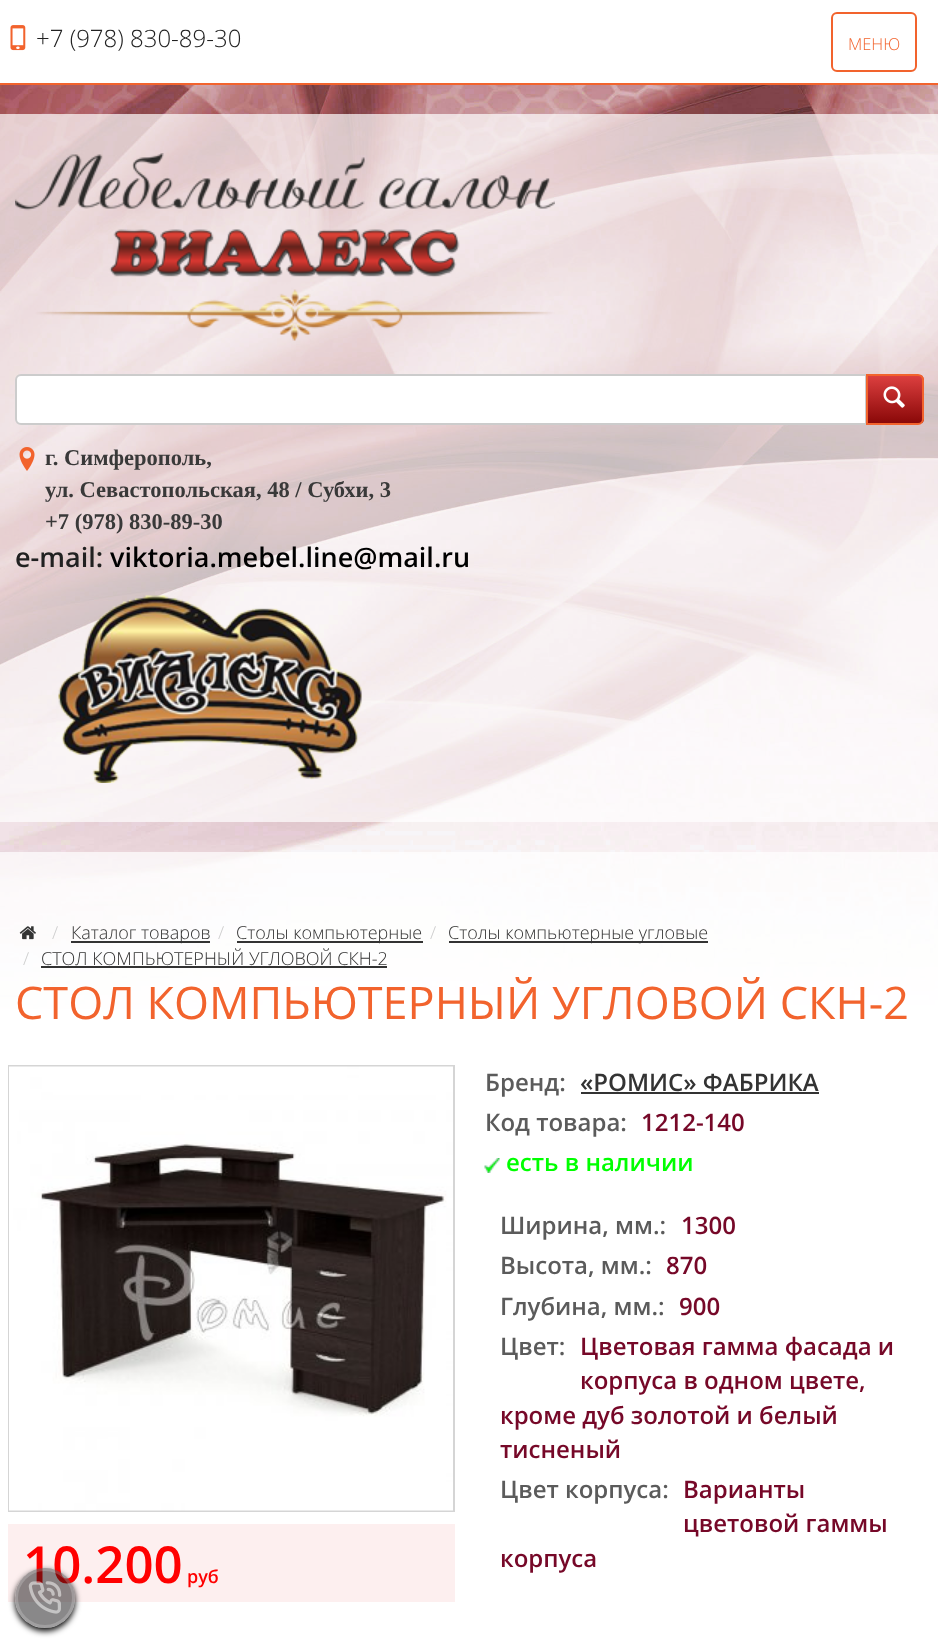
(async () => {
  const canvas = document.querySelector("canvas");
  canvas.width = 938;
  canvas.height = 1650;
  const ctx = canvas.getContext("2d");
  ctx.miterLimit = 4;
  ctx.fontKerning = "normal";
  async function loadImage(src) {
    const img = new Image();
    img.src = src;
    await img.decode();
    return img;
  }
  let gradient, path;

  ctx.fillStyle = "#ffffff";
  ctx.fillRect(0, 0, 938, 1650);
  ctx.drawImage(await loadImage("img/1.png"), 0, 85, 938, 924);
  ctx.fillStyle = "#f2632d";
  ctx.fillRect(0, 83, 938, 2);
  ctx.drawImage(await loadImage("img/2.png"), 10, 25, 16, 26);
  ctx.beginPath();
  ctx.roundRect(832, 13, 84, 58, 5);
  ctx.strokeStyle = "#f2632d";
  ctx.lineWidth = 2;
  ctx.stroke();
  ctx.fillStyle = "rgba(255, 255, 255, 0.7)";
  ctx.fillRect(0, 114, 938, 708);
  ctx.drawImage(await loadImage("img/3.png"), 15, 153, 540, 188);
  ctx.fillStyle = "#ffffff";
  ctx.beginPath();
  ctx.roundRect(16, 375, 850, 49, [5, 0, 0, 5]);
  ctx.fill();
  ctx.strokeStyle = "#cccccc";
  ctx.stroke();
  ctx.save();
  ctx.beginPath();
  ctx.roundRect(866, 374, 58, 51, [0, 6, 6, 0]);
  ctx.clip();
  gradient = ctx.createLinearGradient(895, 375, 895, 423);
  gradient.addColorStop(0, "#de4040");
  gradient.addColorStop(1, "#8a0808");
  ctx.fillStyle = gradient;
  ctx.fillRect(868, 375, 56, 48);
  ctx.restore();
  ctx.beginPath();
  ctx.roundRect(867, 375, 56, 49, [0, 5, 5, 0]);
  ctx.strokeStyle = "#f2632d";
  ctx.stroke();
  ctx.drawImage(await loadImage("img/4.png"), 883, 386, 22, 22);
  ctx.drawImage(await loadImage("img/5.png"), 19, 447, 16, 24);
  ctx.drawImage(await loadImage("img/6.png"), 58, 595, 304, 188);
  ctx.fillStyle = "rgba(255, 255, 255, 0.7)";
  ctx.fillRect(0, 852, 938, 157);
  ctx.drawImage(await loadImage("img/7.png"), 19, 926, 17, 14);
  for (const [x, y, w, h, color] of [
    [71, 941, 139, 2, "#333333"],
    [237, 941, 186, 2, "#333333"],
    [449, 941, 259, 2, "#333333"],
    [41, 966, 346, 2, "#333333"],
  ]) {
    ctx.fillStyle = color;
    ctx.fillRect(x, y, w, h);
  }
  ctx.strokeStyle = "#d5d5d5";
  ctx.strokeRect(9, 1066, 445, 445);
  ctx.drawImage(await loadImage("img/8.png"), 9, 1066, 444, 445);
  ctx.fillStyle = "#fdefef";
  ctx.fillRect(8, 1524, 447, 78);
  ctx.fillStyle = "#333333";
  ctx.fillRect(581, 1092, 238, 2);
  ctx.drawImage(await loadImage("img/9.png"), 484, 1158, 16, 15);
  ctx.save();
  path = new Path2D("M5 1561H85V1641H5ZM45 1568C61.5 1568 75 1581.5 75 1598C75 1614.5 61.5 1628 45 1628C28.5 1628 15 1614.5 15 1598C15 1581.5 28.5 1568 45 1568Z");
  ctx.clip(path, "evenodd");
  ctx.fillStyle = "#000000";
  ctx.filter = "blur(3px)";
  ctx.beginPath();
  ctx.roundRect(15, 1571, 60, 60, 30);
  ctx.fill();
  ctx.filter = "none";
  ctx.restore();
  ctx.font = "300 24px Open Sans";
  ctx.fillStyle = "#212121";
  ctx.fillText("+7 (978) 830-89-30", 36, 47);
  ctx.font = "300 16.5px Open Sans";
  ctx.fillStyle = "#f2632d";
  ctx.fillText("МЕНЮ", 848, 50);
  ctx.font = "bold 22.5px Liberation Serif";
  ctx.fillStyle = "#393939";
  for (const [text, x, y] of [
    ["г. Симферополь,", 45, 465],
    ["ул. Севастопольская, 48 / Субхи, 3", 45, 497],
    ["+7 (978) 830-89-30", 45, 529],
  ]) {
    ctx.fillText(text, x, y);
  }
  ctx.font = "600 27px Open Sans";
  ctx.fillStyle = "#212121";
  ctx.fillText("e-mail:", 15, 567);
  ctx.fillStyle = "#000000";
  ctx.fillText("viktoria.mebel.line@mail.ru", 110, 567);
  ctx.font = "300 18px Open Sans";
  ctx.fillStyle = "#cccccc";
  ctx.fillText("/", 52, 939);
  ctx.fillStyle = "#333333";
  ctx.fillText("Каталог товаров", 71, 939);
  ctx.fillStyle = "#cccccc";
  ctx.fillText("/", 218, 939);
  ctx.fillStyle = "#333333";
  ctx.fillText("Столы компьютерные", 236, 939);
  ctx.fillStyle = "#cccccc";
  ctx.fillText("/", 430, 939);
  ctx.fillStyle = "#333333";
  ctx.fillText("Столы компьютерные угловые", 448, 939);
  ctx.fillStyle = "#cccccc";
  ctx.fillText("/", 23, 965);
  ctx.fillStyle = "#333333";
  ctx.fillText("СТОЛ КОМПЬЮТЕРНЫЙ УГЛОВОЙ СКН-2", 41, 965);
  ctx.font = "45px Open Sans";
  ctx.fillStyle = "#f2632d";
  ctx.fillText("СТОЛ КОМПЬЮТЕРНЫЙ УГЛОВОЙ СКН-2", 15, 1019);
  ctx.font = "600 51px Open Sans";
  ctx.fillStyle = "#ff0000";
  ctx.fillText("10.200", 23, 1583);
  ctx.font = "600 18px Open Sans";
  ctx.fillText("руб", 187, 1583);
  ctx.font = "600 24px Open Sans";
  ctx.fillStyle = "#5b5b5b";
  ctx.fillText("Бренд:", 485, 1091);
  ctx.fillStyle = "#333333";
  ctx.fillText("«РОМИС» ФАБРИКА", 580, 1091);
  ctx.fillStyle = "#5b5b5b";
  ctx.fillText("Код товара:", 485, 1131);
  ctx.fillStyle = "#760828";
  ctx.fillText("1212-140", 641, 1131);
  ctx.fillStyle = "#00ff00";
  ctx.fillText("есть в наличии", 506, 1171);
  ctx.fillStyle = "#5b5b5b";
  ctx.fillText("Ширина, мм.:", 500, 1234);
  ctx.fillStyle = "#760828";
  ctx.fillText("1300", 681, 1234);
  ctx.fillStyle = "#5b5b5b";
  ctx.fillText("Высота, мм.:", 500, 1274);
  ctx.fillStyle = "#760828";
  ctx.fillText("870", 666, 1274);
  ctx.fillStyle = "#5b5b5b";
  ctx.fillText("Глубина, мм.:", 500, 1315);
  ctx.fillStyle = "#760828";
  for (const [text, x, y] of [
    ["900", 679, 1315],
    ["Цветовая гамма фасада и", 580, 1355],
    ["корпуса в одном цвете,", 580, 1389],
    ["кроме дуб золотой и белый", 500, 1424],
    ["тисненый", 500, 1458],
  ]) {
    ctx.fillText(text, x, y);
  }
  ctx.fillStyle = "#5b5b5b";
  ctx.fillText("Цвет:", 500, 1355);
  ctx.fillText("Цвет корпуса:", 500, 1498);
  ctx.fillStyle = "#760828";
  for (const [text, x, y] of [
    ["Варианты", 683, 1498],
    ["цветовой гаммы", 683, 1532],
    ["корпуса", 500, 1567],
  ]) {
    ctx.fillText(text, x, y);
  }
  ctx.fillStyle = "rgba(19, 18, 20, 0.5)";
  ctx.beginPath();
  ctx.arc(45, 1598, 30, 0, Math.PI * 2);
  ctx.fill();
  ctx.beginPath();
  ctx.arc(45, 1598, 28.5, 0, Math.PI * 2);
  ctx.strokeStyle = "rgba(255, 255, 255, 0.2)";
  ctx.lineWidth = 3;
  ctx.stroke();
  ctx.drawImage(await loadImage("img/10.png"), 28, 1581, 34, 33);
})();
